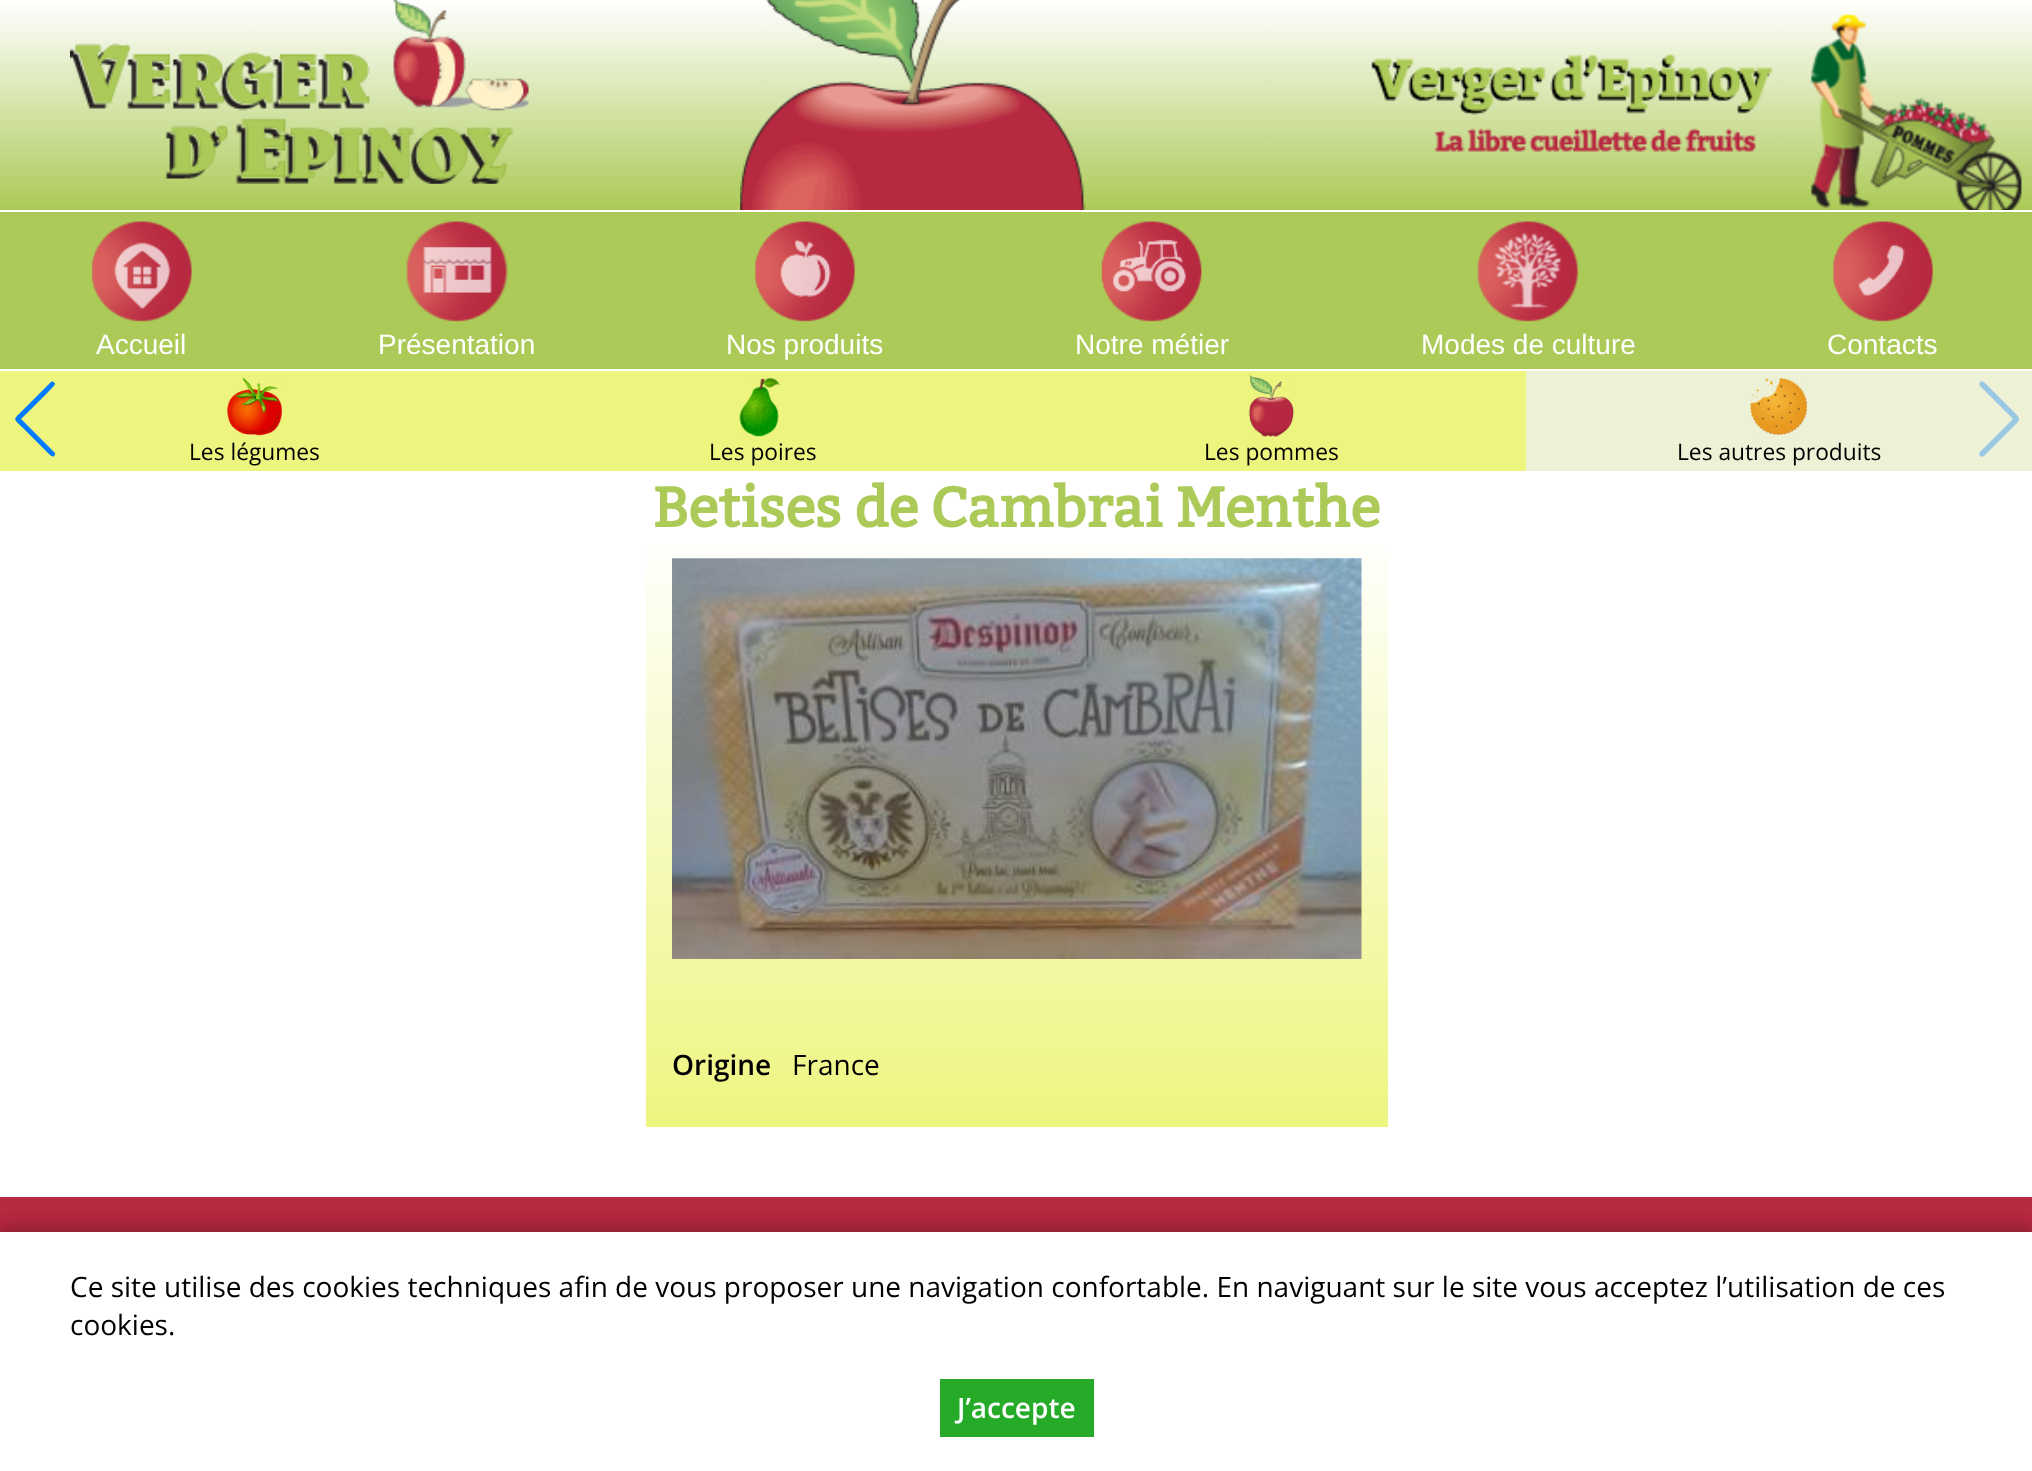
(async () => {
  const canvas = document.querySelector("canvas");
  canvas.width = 2032;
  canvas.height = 1471;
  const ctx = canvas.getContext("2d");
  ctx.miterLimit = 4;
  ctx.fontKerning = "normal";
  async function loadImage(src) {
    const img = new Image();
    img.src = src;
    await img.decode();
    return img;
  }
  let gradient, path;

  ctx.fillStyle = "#ffffff";
  ctx.fillRect(0, 0, 2032, 1471);
  ctx.drawImage(await loadImage("img/1.png"), 0, 0, 2032, 210);
  ctx.drawImage(await loadImage("img/2.png"), 70, 0, 459, 184);
  ctx.fillStyle = "#acca57";
  ctx.fillRect(0, 212, 2032, 157);
  ctx.drawImage(await loadImage("img/3.png"), 91, 221, 101, 101);
  ctx.drawImage(await loadImage("img/4.png"), 406, 221, 102, 101);
  ctx.drawImage(await loadImage("img/5.png"), 755, 221, 100, 101);
  ctx.drawImage(await loadImage("img/6.png"), 1101, 221, 101, 101);
  ctx.drawImage(await loadImage("img/7.png"), 1477, 221, 102, 101);
  ctx.drawImage(await loadImage("img/8.png"), 1833, 221, 100, 101);
  ctx.fillStyle = "#eef57f";
  ctx.fillRect(0, 371, 1526, 100);
  ctx.fillStyle = "#007aff";
  path = new Path2D("M51 382C52 381 55 382 55 384C55 386 25 415 21 419L55 453V454C54 460 49 454 45 450L22 427C13 418 13 420 22 411Z");
  ctx.fill(path);
  ctx.drawImage(await loadImage("img/9.png"), 227, 377, 55, 59);
  ctx.drawImage(await loadImage("img/10.png"), 739, 378, 41, 59);
  ctx.drawImage(await loadImage("img/11.png"), 1248, 375, 46, 62);
  ctx.fillStyle = "#edf1d6";
  ctx.fillRect(1526, 371, 506, 100);
  ctx.drawImage(await loadImage("img/12.png"), 1750, 378, 57, 57);
  ctx.fillStyle = "#9ac7e4";
  path = new Path2D("M1980 456C1979 455 1979 453 1980 452L2013 419L1980 386C1979 385 1979 384 1980 382C1981 381 1982 381 1984 382L2018 416C2018 417 2019 418 2019 419C2019 420 2018 421 2018 422L1984 456C1982 457 1981 457 1980 456Z");
  ctx.fill(path);
  gradient = ctx.createLinearGradient(1017, 532, 1017, 1127);
  gradient.addColorStop(0, "#ffffff");
  gradient.addColorStop(1, "#eef57f");
  ctx.fillStyle = gradient;
  ctx.fillRect(646, 544, 742, 583);
  ctx.drawImage(await loadImage("img/13.png"), 672, 558, 690, 401);
  ctx.fillStyle = "#b72841";
  ctx.fillRect(0, 1197, 2032, 35);
  ctx.fillStyle = "rgba(0, 0, 0, 0.2)";
  ctx.filter = "blur(7px)";
  ctx.beginPath();
  ctx.rect(0, 1225, 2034, 240);
  ctx.fill();
  ctx.filter = "none";
  ctx.fillStyle = "#ffffff";
  ctx.fillRect(0, 1232, 2032, 239);
  ctx.fillStyle = "#25ab28";
  ctx.fillRect(940, 1379, 154, 58);
  ctx.font = "28px Liberation Sans";
  ctx.fillStyle = "#ffffff";
  for (const [text, x, y] of [
    ["Accueil", 96, 354],
    ["Présentation", 378, 354],
    ["Nos produits", 726, 354],
    ["Notre métier", 1075, 354],
    ["Modes de culture", 1421, 354],
    ["Contacts", 1827, 354],
  ]) {
    ctx.fillText(text, x, y);
  }
  ctx.font = "22.75px Open Sans";
  ctx.fillStyle = "#000000";
  for (const [text, x, y] of [
    ["Les légumes", 189, 460],
    ["Les poires", 709, 460],
    ["Les pommes", 1204, 460],
    ["Les autres produits", 1677, 460],
  ]) {
    ctx.fillText(text, x, y);
  }
  ctx.font = "bold 56px Bitter";
  ctx.fillStyle = "#acca57";
  ctx.fillText("Betises de Cambrai Menthe", 653, 527);
  ctx.font = "600 28px Open Sans";
  ctx.fillStyle = "#000000";
  ctx.fillText("Origine", 672, 1075);
  ctx.font = "28px Open Sans";
  for (const [text, x, y] of [
    ["France", 792, 1075],
    ["Ce site utilise des cookies techniques afin de vous proposer une navigation confortable. En naviguant sur le site vous acceptez l’utilisation de ces", 70, 1297],
    ["cookies.", 70, 1335],
  ]) {
    ctx.fillText(text, x, y);
  }
  ctx.font = "600 28px Open Sans";
  ctx.fillStyle = "#ffffff";
  ctx.fillText("J’accepte", 957, 1418);
})();
